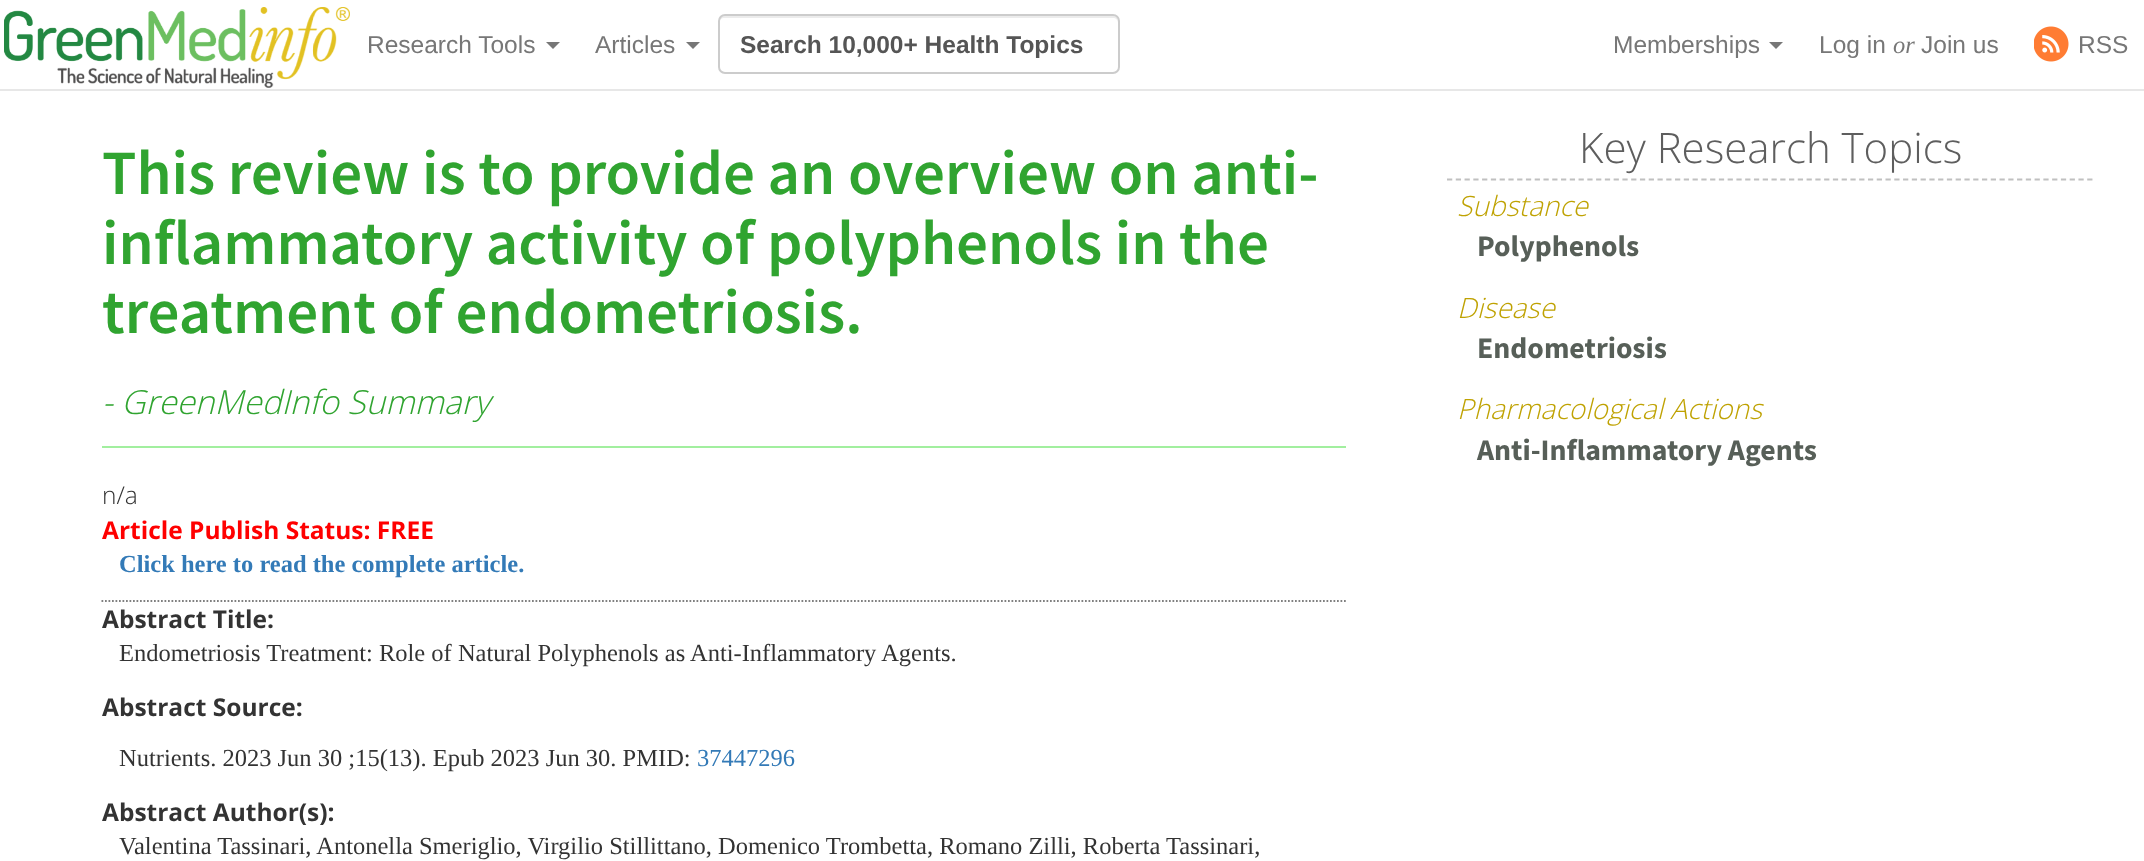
(async () => {
  const canvas = document.querySelector("canvas");
  canvas.width = 2144;
  canvas.height = 861;
  const ctx = canvas.getContext("2d");
  ctx.miterLimit = 4;
  ctx.fontKerning = "normal";
  async function loadImage(src) {
    const img = new Image();
    img.src = src;
    await img.decode();
    return img;
  }
  let path;

  ctx.fillStyle = "#ffffff";
  ctx.fillRect(0, 0, 2144, 861);
  ctx.fillStyle = "#e7e7e7";
  ctx.fillRect(0, 89, 2144, 2);
  ctx.drawImage(await loadImage("img/1.png"), 4, 7, 346, 81);
  ctx.fillStyle = "#777777";
  path = new Path2D("M546 42H560L553 49Z");
  ctx.fill(path);
  path = new Path2D("M686 42H700L693 49Z");
  ctx.fill(path);
  ctx.fillStyle = "#ececec";
  path = new Path2D("M724 18H1113C1116 18 1118 20 1118 23V21C1118 18 1116 16 1113 16H724C721 16 719 18 719 21V23C719 20 722 18 724 18Z");
  ctx.fill(path);
  ctx.beginPath();
  ctx.roundRect(719, 15, 400, 58, 6);
  ctx.strokeStyle = "#cccccc";
  ctx.lineWidth = 2;
  ctx.stroke();
  ctx.fillStyle = "#777777";
  path = new Path2D("M1769 42H1783L1776 49Z");
  ctx.fill(path);
  ctx.drawImage(await loadImage("img/2.png"), 2034, 26, 35, 36);
  ctx.fillStyle = "#a2ef9f";
  ctx.fillRect(102, 446, 1244, 2);
  path = new Path2D("M101.5 601H1346");
  ctx.strokeStyle = "#808080";
  ctx.lineWidth = 1.8;
  ctx.setLineDash([1.75, 1.75]);
  ctx.stroke(path);
  path = new Path2D("M1447 179.5H2093");
  ctx.strokeStyle = "#c0c0c0";
  ctx.setLineDash([5.25, 3.52]);
  ctx.stroke(path);
  ctx.font = "24.5px Liberation Sans";
  ctx.fillStyle = "#777777";
  ctx.fillText("Research Tools", 367, 53);
  ctx.fillText("Articles", 595, 53);
  ctx.save();
  ctx.beginPath();
  ctx.rect(740, 30, 357, 28);
  ctx.clip();
  ctx.font = "bold 24.5px Liberation Sans";
  ctx.fillStyle = "#555555";
  ctx.fillText("Search 10,000+ Health Topics", 740, 53);
  ctx.restore();
  ctx.fillText("Memberships", 1613, 53);
  ctx.fillText("Log in", 1819, 53);
  ctx.font = "italic 24.5px Liberation Serif";
  ctx.fillText("or", 1893, 53);
  ctx.font = "24.5px Liberation Sans";
  ctx.fillText("Join us", 1921, 53);
  ctx.fillText("RSS", 2078, 53);
  ctx.font = "600 63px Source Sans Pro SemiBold";
  ctx.fillStyle = "#30a430";
  for (const [text, x, y] of [
    ["This review is to provide an overview on anti-", 102, 194],
    ["inflammatory activity of polyphenols in the", 102, 264],
    ["treatment of endometriosis.", 102, 333],
  ]) {
    ctx.fillText(text, x, y);
  }
  ctx.font = "italic 300 33.25px Open Sans";
  ctx.fillText("- GreenMedInfo Summary", 102, 414);
  ctx.font = "300 24.5px Open Sans";
  ctx.fillStyle = "#333333";
  ctx.fillText("n/a", 102, 504);
  ctx.font = "bold 24.5px Open Sans";
  ctx.fillStyle = "#ff0000";
  ctx.fillText("Article Publish Status: FREE", 102, 539);
  ctx.font = "bold 24.5px Liberation Serif";
  ctx.fillStyle = "#337ab7";
  ctx.fillText("Click here to read the complete article.", 119, 572);
  ctx.font = "bold 24.5px Open Sans";
  ctx.fillStyle = "#333333";
  ctx.fillText("Abstract Title:", 102, 628);
  ctx.font = "24.5px Liberation Serif";
  ctx.fillText("Endometriosis Treatment: Role of Natural Polyphenols as Anti-Inflammatory Agents.", 119, 661);
  ctx.font = "bold 24.5px Open Sans";
  ctx.fillText("Abstract Source:", 102, 716);
  ctx.font = "24.5px Liberation Serif";
  ctx.fillText("Nutrients. 2023 Jun 30 ;15(13). Epub 2023 Jun 30. PMID:", 119, 766);
  ctx.fillStyle = "#337ab7";
  ctx.fillText("37447296", 697, 766);
  ctx.font = "bold 24.5px Open Sans";
  ctx.fillStyle = "#333333";
  ctx.fillText("Abstract Author(s):", 102, 821);
  ctx.font = "24.5px Liberation Serif";
  ctx.fillText("Valentina Tassinari, Antonella Smeriglio, Virgilio Stillittano, Domenico Trombetta, Romano Zilli, Roberta Tassinari,", 119, 854);
  ctx.font = "300 42px Open Sans";
  ctx.fillStyle = "#5e5e5e";
  ctx.fillText("Key Research Topics", 1579, 163);
  ctx.font = "italic 300 28px Open Sans";
  ctx.fillStyle = "#bfa202";
  ctx.fillText("Substance", 1457, 216);
  ctx.font = "bold 29.75px Source Sans Pro";
  ctx.fillStyle = "#575f58";
  ctx.fillText("Polyphenols", 1477, 256);
  ctx.font = "italic 300 28px Open Sans";
  ctx.fillStyle = "#bfa202";
  ctx.fillText("Disease", 1457, 318);
  ctx.font = "bold 29.75px Source Sans Pro";
  ctx.fillStyle = "#575f58";
  ctx.fillText("Endometriosis", 1477, 358);
  ctx.font = "italic 300 28px Open Sans";
  ctx.fillStyle = "#bfa202";
  ctx.fillText("Pharmacological Actions", 1457, 419);
  ctx.font = "bold 29.75px Source Sans Pro";
  ctx.fillStyle = "#575f58";
  ctx.fillText("Anti-Inflammatory Agents", 1477, 460);
})();
